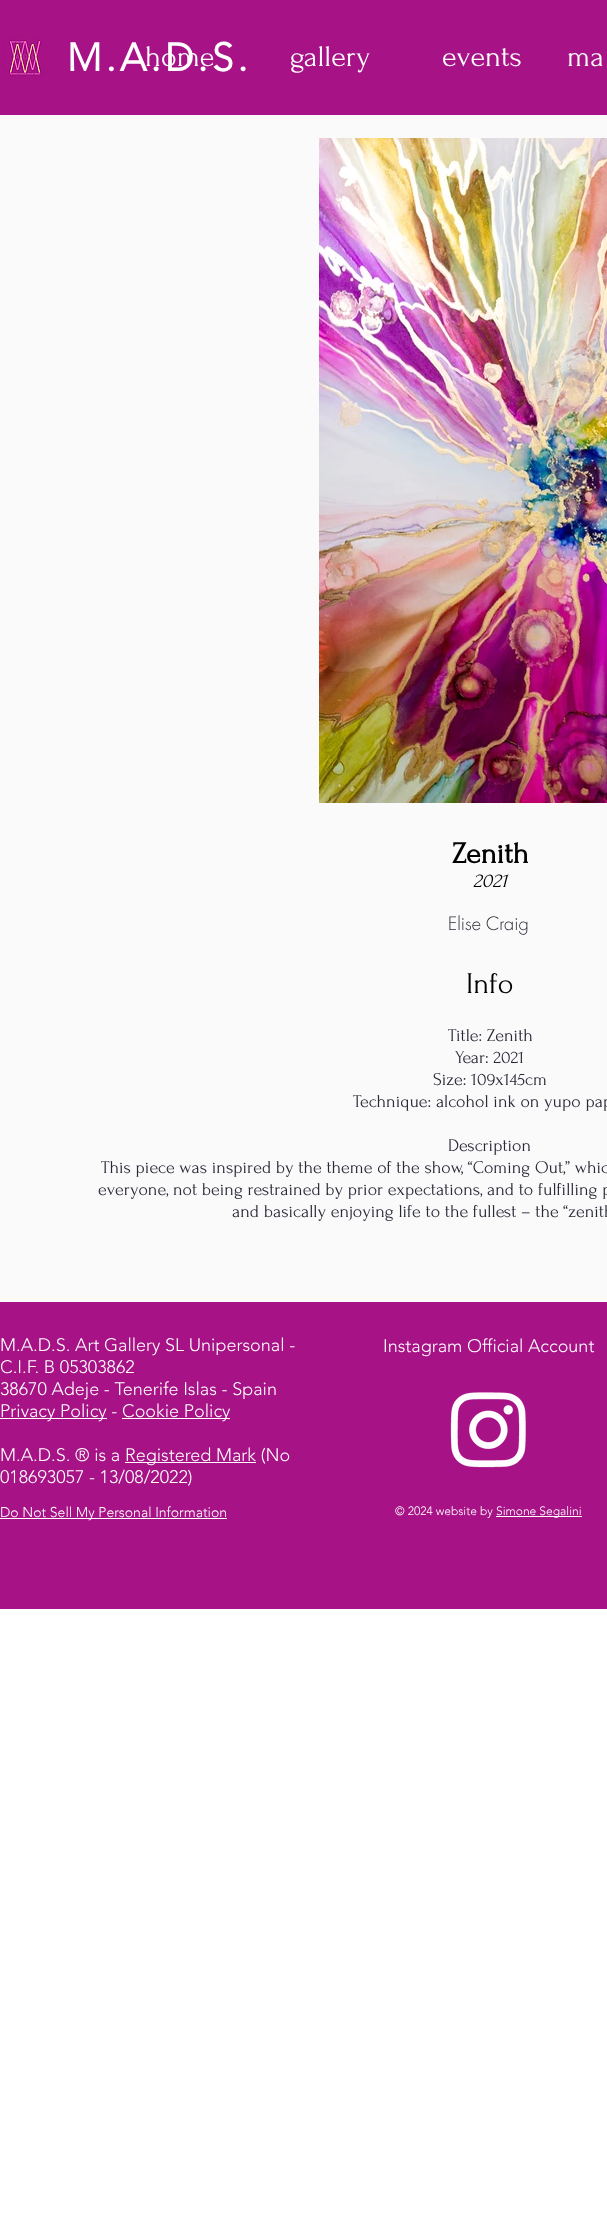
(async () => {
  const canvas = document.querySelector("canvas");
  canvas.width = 607;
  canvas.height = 2224;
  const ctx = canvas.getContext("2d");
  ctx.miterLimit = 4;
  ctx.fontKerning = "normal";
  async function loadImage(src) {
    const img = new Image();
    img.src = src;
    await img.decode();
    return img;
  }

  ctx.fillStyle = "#ffffff";
  ctx.fillRect(0, 0, 607, 2224);
  ctx.fillStyle = "#a71286";
  ctx.fillRect(0, 0, 607, 115);
  ctx.drawImage(await loadImage("img/1.png"), 1, 35, 46, 44);
  ctx.fillStyle = "#fafafa";
  ctx.fillRect(0, 115, 607, 1187);
  ctx.drawImage(await loadImage("img/2.png"), 319, 138, 288, 665);
  for (const [x, y, w, h, color] of [
    [0, 1302, 607, 307, "#a71286"],
    [0, 1418, 107, 1, "#ffffff"],
    [122, 1418, 108, 1, "#ffffff"],
    [125, 1462, 131, 1, "#ffffff"],
    [0, 1518, 227, 1, "#ffffff"],
  ]) {
    ctx.fillStyle = color;
    ctx.fillRect(x, y, w, h);
  }
  ctx.drawImage(await loadImage("img/3.png"), 450, 1392, 76, 76);
  ctx.fillRect(496, 1516, 86, 1);
  ctx.letterSpacing = "4px";
  ctx.font = "bold 39px 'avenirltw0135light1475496'";
  ctx.fillText("M.A.D.S.", 67, 71);
  ctx.letterSpacing = "0px";
  ctx.font = "30px Forum";
  for (const [text, x, y] of [
    ["home", 145, 66],
    ["gallery", 290, 66],
    ["events", 442, 66],
    ["ma", 567, 66],
  ]) {
    ctx.fillText(text, x, y);
  }
  ctx.font = "bold 30px Forum";
  ctx.fillStyle = "#000000";
  ctx.fillText("Zenith", 452, 863);
  ctx.font = "italic 20px Forum";
  ctx.fillText("2021", 473, 887);
  ctx.font = "300 18px futura";
  ctx.fillStyle = "#282936";
  ctx.fillText("Elise Craig", 448, 930);
  ctx.font = "30px Forum";
  ctx.fillStyle = "#000000";
  ctx.fillText("Info", 466, 993);
  ctx.font = "18px Forum";
  ctx.fillStyle = "#282936";
  for (const [text, x, y] of [
    ["Title: Zenith", 448, 1041],
    ["Year: 2021", 455, 1063],
    ["Size: 109x145cm", 433, 1085],
    ["Technique: alcohol ink on yupo pap", 353, 1107],
    ["Description", 448, 1151],
    ["This piece was inspired by the theme of the show, “Coming Out,” whic", 101, 1173],
    ["everyone, not being restrained by prior expectations, and to fulfilling p", 98, 1195],
    ["and basically enjoying life to the fullest – the “zenith", 232, 1217],
  ]) {
    ctx.fillText(text, x, y);
  }
  ctx.font = "300 18px 'avenirltw0135light1475496'";
  ctx.fillStyle = "#ffffff";
  for (const [text, x, y] of [
    ["M.A.D.S. Art Gallery SL Unipersonal -", 0, 1351],
    ["C.I.F. B 05303862", 0, 1373],
    ["38670 Adeje - Tenerife Islas - Spain", 0, 1395],
    ["Privacy Policy -", 0, 1417],
    ["Cookie Policy", 122, 1417],
    ["M.A.D.S. ® is a", 0, 1461],
    ["Registered Mark (No", 125, 1461],
    ["018693057 - 13/08/2022)", 0, 1483],
  ]) {
    ctx.fillText(text, x, y);
  }
  ctx.font = "300 14px 'avenirltw0135light1475496'";
  ctx.fillText("Do Not Sell My Personal Information", 0, 1517);
  ctx.font = "300 18px 'avenirltw0135light1475496'";
  ctx.fillText("Instagram Official Account", 383, 1352);
  ctx.font = "300 12px 'avenirltw0135light1475496'";
  ctx.fillText("© 2024 website by", 395, 1515);
  ctx.fillText("Simone Segalini", 496, 1515);
})();
